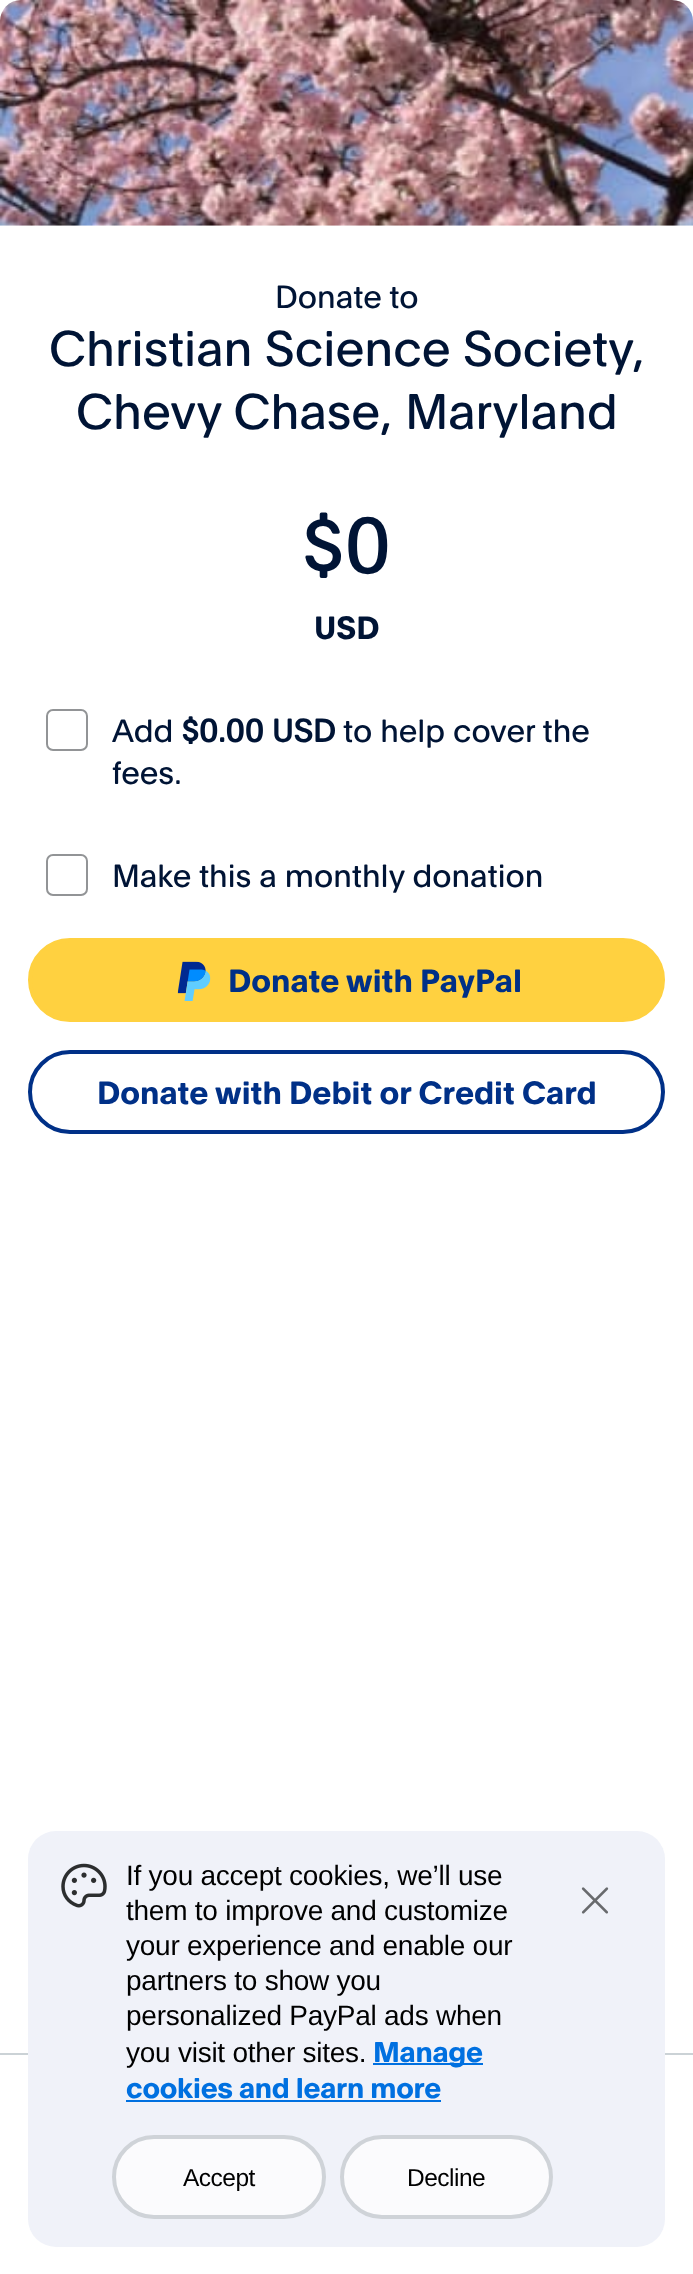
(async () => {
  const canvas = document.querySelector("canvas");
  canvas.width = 693;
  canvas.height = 2274;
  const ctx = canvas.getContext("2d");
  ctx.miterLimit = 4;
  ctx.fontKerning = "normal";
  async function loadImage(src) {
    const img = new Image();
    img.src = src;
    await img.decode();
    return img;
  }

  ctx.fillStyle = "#ffffff";
  ctx.fillRect(0, 0, 693, 2274);
  ctx.drawImage(await loadImage("img/1.png"), 0, 0, 693, 226);
  ctx.beginPath();
  ctx.roundRect(47, 710, 40, 40, 6);
  ctx.strokeStyle = "#929496";
  ctx.lineWidth = 2;
  ctx.stroke();
  ctx.beginPath();
  ctx.roundRect(47, 855, 40, 40, 6);
  ctx.stroke();
  ctx.fillStyle = "#ffd140";
  ctx.beginPath();
  ctx.roundRect(30, 940, 633, 80, 40);
  ctx.fill();
  ctx.strokeStyle = "#ffd140";
  ctx.lineWidth = 4;
  ctx.stroke();
  ctx.drawImage(await loadImage("img/2.png"), 177, 961, 34, 40);
  ctx.beginPath();
  ctx.roundRect(30, 1052, 633, 80, 40);
  ctx.strokeStyle = "#003087";
  ctx.stroke();
  ctx.fillStyle = "#cbd2d6";
  ctx.fillRect(0, 2053, 693, 2);
  ctx.fillStyle = "#f0f2f9";
  ctx.beginPath();
  ctx.roundRect(28, 1831, 637, 416, 28);
  ctx.fill();
  ctx.drawImage(await loadImage("img/3.png"), 61, 1863, 46, 45);
  ctx.fillStyle = "#0070e0";
  ctx.fillRect(373, 2063, 110, 2);
  ctx.fillRect(126, 2100, 315, 2);
  ctx.fillStyle = "#fbfbfd";
  ctx.beginPath();
  ctx.roundRect(114, 2137, 210, 80, 40);
  ctx.fill();
  ctx.strokeStyle = "#cfd3d8";
  ctx.stroke();
  ctx.beginPath();
  ctx.roundRect(342, 2137, 209, 80, 40);
  ctx.fill();
  ctx.stroke();
  ctx.drawImage(await loadImage("img/4.png"), 581, 1887, 28, 27);
  ctx.font = "31.5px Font";
  ctx.fillStyle = "#001435";
  ctx.fillText("Donate to", 275, 308);
  ctx.font = "49px Font";
  ctx.fillText("Christian Science Society,", 49, 366);
  ctx.fillText("Chevy Chase, Maryland", 76, 429);
  ctx.font = "77px Font";
  ctx.fillText("$0", 301, 573);
  ctx.font = "bold 31.5px Font";
  ctx.fillText("USD", 314, 639);
  ctx.font = "31.5px Font";
  ctx.fillText("Add", 112, 742);
  ctx.font = "bold 31.5px 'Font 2'";
  ctx.fillText("$0.00 USD", 181, 742);
  ctx.font = "31.5px Font";
  for (const [text, x, y] of [
    ["to help cover the", 343, 742],
    ["fees.", 112, 784],
    ["Make this a monthly donation", 112, 887],
  ]) {
    ctx.fillText(text, x, y);
  }
  ctx.font = "bold 31.5px Font";
  ctx.fillStyle = "#003087";
  ctx.fillText("Donate with PayPal", 228, 992);
  ctx.fillText("Donate with Debit or Credit Card", 97, 1104);
  ctx.letterSpacing = "-0.25px";
  ctx.font = "28px Liberation Sans";
  ctx.fillStyle = "#000000";
  for (const [text, x, y] of [
    ["If you accept cookies, we’ll use", 126, 1885],
    ["them to improve and customize", 126, 1920],
    ["your experience and enable our", 126, 1955],
    ["partners to show you", 126, 1990],
    ["personalized PayPal ads when", 126, 2025],
    ["you visit other sites.", 126, 2062],
  ]) {
    ctx.fillText(text, x, y);
  }
  ctx.font = "bold 28px Font";
  ctx.fillStyle = "#0070e0";
  ctx.fillText("Manage", 373, 2062);
  ctx.fillText("cookies and learn more", 126, 2098);
  ctx.letterSpacing = "-0.5px";
  ctx.font = "24.5px Liberation Sans";
  ctx.fillStyle = "#000000";
  ctx.fillText("Accept", 183, 2186);
  ctx.fillText("Decline", 407, 2186);
})();
